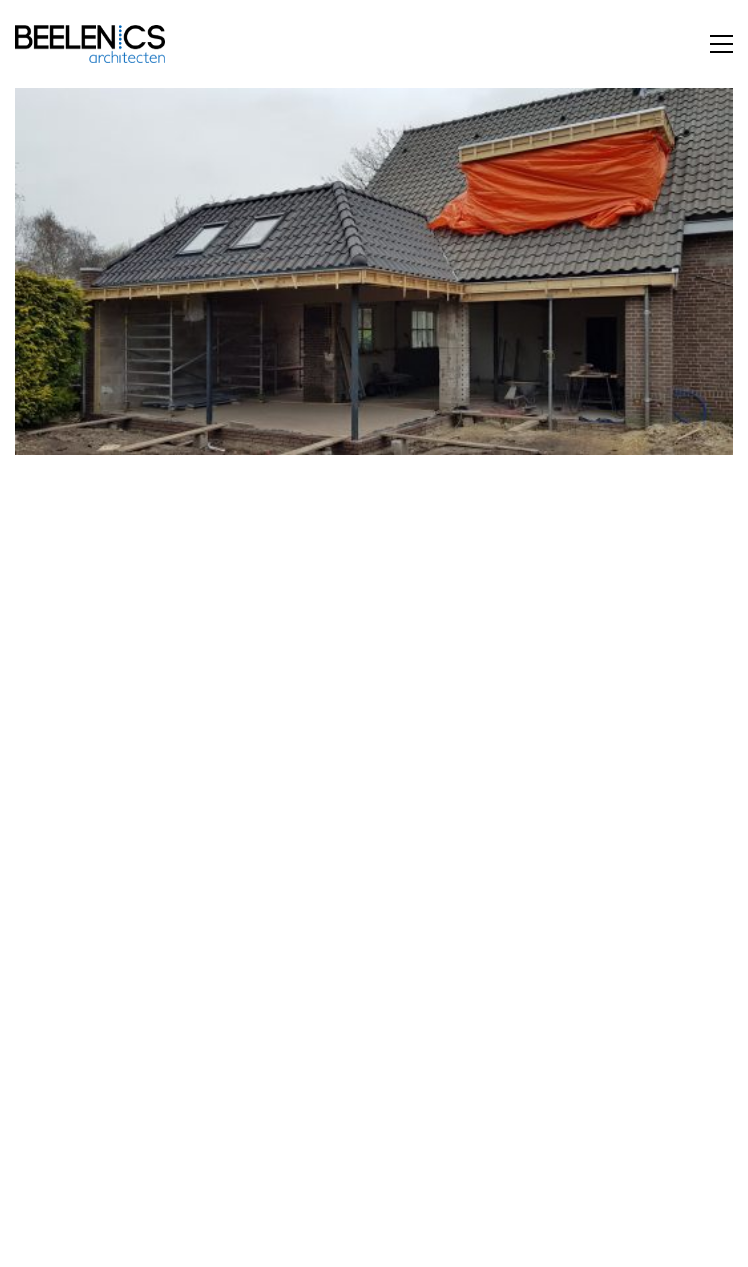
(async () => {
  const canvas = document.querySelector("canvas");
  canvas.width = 748;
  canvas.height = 1267;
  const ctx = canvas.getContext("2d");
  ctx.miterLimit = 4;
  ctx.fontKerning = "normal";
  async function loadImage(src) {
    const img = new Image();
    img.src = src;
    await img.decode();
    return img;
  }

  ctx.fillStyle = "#ffffff";
  ctx.fillRect(0, 0, 748, 1267);
  ctx.drawImage(await loadImage("img/1.png"), 15, 25, 150, 38);
  for (const [x, y, w, h, color] of [
    [710, 35, 23, 2, "#000000"],
    [710, 43, 23, 2, "#000000"],
    [710, 51, 23, 2, "#000000"],
  ]) {
    ctx.fillStyle = color;
    ctx.fillRect(x, y, w, h);
  }
  ctx.drawImage(await loadImage("img/2.png"), 15, 88, 718, 367);
})();
